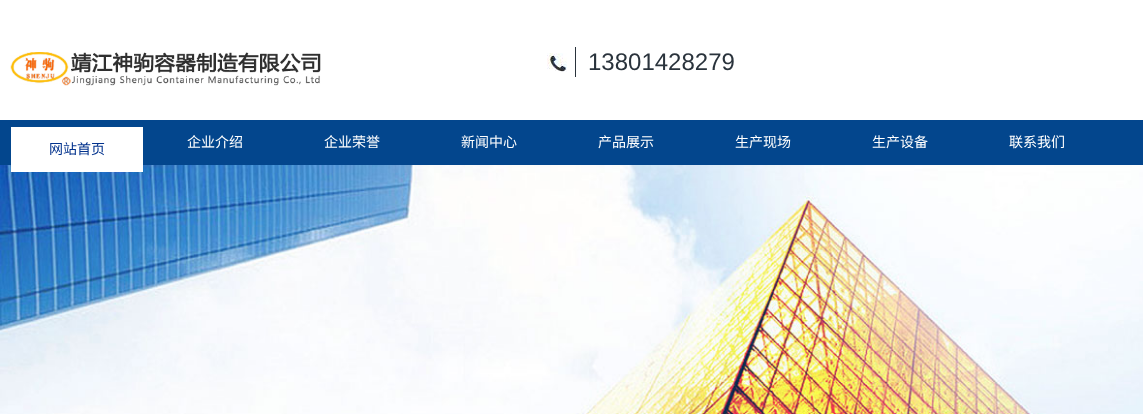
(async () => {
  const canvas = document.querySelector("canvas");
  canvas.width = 1143;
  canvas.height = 414;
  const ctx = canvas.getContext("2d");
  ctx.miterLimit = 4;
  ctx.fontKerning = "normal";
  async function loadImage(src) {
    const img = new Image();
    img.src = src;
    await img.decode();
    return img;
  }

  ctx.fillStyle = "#ffffff";
  ctx.fillRect(0, 0, 1143, 414);
  ctx.drawImage(await loadImage("img/1.png"), 10, 52, 311, 34);
  ctx.drawImage(await loadImage("img/2.png"), 547, 53, 20, 19);
  ctx.fillStyle = "#2a333c";
  ctx.fillRect(575, 47, 1, 30);
  ctx.fillStyle = "#03468d";
  ctx.fillRect(0, 120, 1143, 45);
  ctx.drawImage(await loadImage("img/3.png"), 0, 165, 1143, 249);
  ctx.fillStyle = "#ffffff";
  ctx.fillRect(11, 127, 132, 45);
  ctx.font = "24px Liberation Sans";
  ctx.fillStyle = "#2a333c";
  ctx.fillText("13801428279", 588, 70);
  ctx.font = "14px Noto Sans CJK SC";
  ctx.fillStyle = "#02328d";
  ctx.fillText("网站首页", 49, 154);
  ctx.fillStyle = "#ffffff";
  for (const [text, x, y] of [
    ["企业介绍", 187, 147],
    ["企业荣誉", 324, 147],
    ["新闻中心", 461, 147],
    ["产品展示", 598, 147],
    ["生产现场", 735, 147],
    ["生产设备", 872, 147],
    ["联系我们", 1009, 147],
  ]) {
    ctx.fillText(text, x, y);
  }
})();
